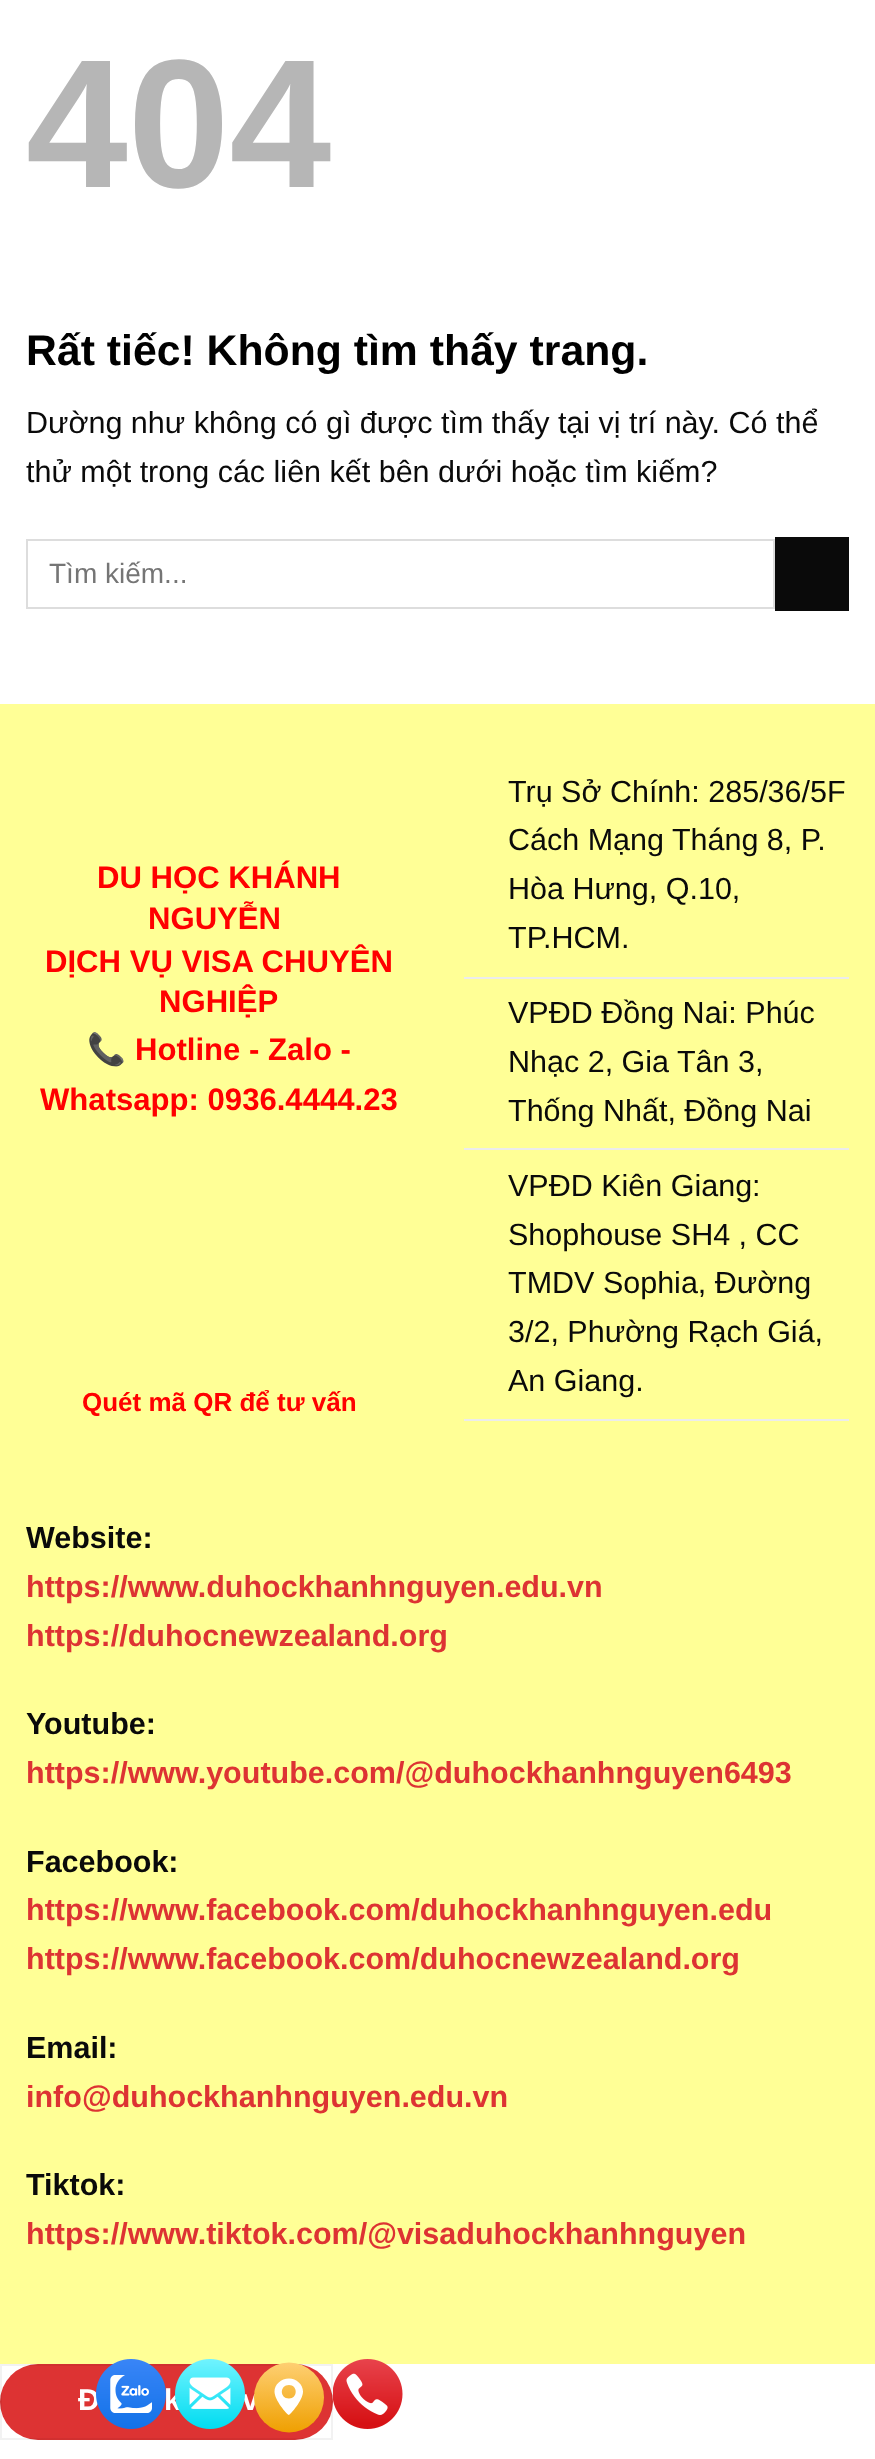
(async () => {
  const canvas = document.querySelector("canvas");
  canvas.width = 875;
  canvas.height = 2459;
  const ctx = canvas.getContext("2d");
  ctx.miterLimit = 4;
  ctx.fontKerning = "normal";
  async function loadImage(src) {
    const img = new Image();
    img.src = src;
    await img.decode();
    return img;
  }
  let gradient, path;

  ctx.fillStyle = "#ffffff";
  ctx.fillRect(0, 0, 875, 2459);
  ctx.strokeStyle = "#dddddd";
  ctx.lineWidth = 2;
  ctx.strokeRect(27, 540, 747, 68);
  for (const [x, y, w, h, color] of [
    [775, 537, 74, 74, "#0a0a0a"],
    [0, 704, 875, 1660, "#ffff96"],
    [464, 977, 385, 2, "#ececec"],
    [464, 1148, 385, 2, "#ececec"],
    [464, 1419, 385, 2, "#ececec"],
  ]) {
    ctx.fillStyle = color;
    ctx.fillRect(x, y, w, h);
  }
  ctx.fillStyle = "#dd3333";
  ctx.beginPath();
  ctx.roundRect(0, 2364, 333, 76, 38);
  ctx.fill();
  ctx.strokeStyle = "rgba(0, 0, 0, 0.05)";
  ctx.strokeRect(1, 2365, 331, 74);
  ctx.drawImage(await loadImage("img/3.png"), 333, 2359, 70, 70);
  ctx.font = "bold 183px Liberation Sans";
  ctx.fillStyle = "#b6b6b6";
  ctx.fillText("404", 26, 187);
  ctx.font = "bold 42.75px Liberation Sans";
  ctx.fillStyle = "#000000";
  ctx.fillText("Rất tiếc! Không tìm thấy trang.", 26, 365);
  ctx.font = "30.5px Liberation Sans";
  ctx.fillStyle = "#0a0a0a";
  ctx.fillText("Dường như không có gì được tìm thấy tại vị trí này. Có thể", 26, 433);
  ctx.fillText("thử một trong các liên kết bên dưới hoặc tìm kiếm?", 26, 482);
  ctx.font = "28px Liberation Sans";
  ctx.fillStyle = "#757575";
  ctx.fillText("Tìm kiếm...", 49, 583);
  ctx.font = "bold 31.1px Liberation Sans";
  ctx.fillStyle = "#ff0000";
  for (const [text, x, y] of [
    ["DU HỌC KHÁNH", 97, 888],
    ["NGUYỄN", 148, 929],
    ["DỊCH VỤ VISA CHUYÊN", 45, 972],
    ["NGHIỆP", 159, 1012],
  ]) {
    ctx.fillText(text, x, y);
  }
  ctx.font = "bold 31.1px Noto Color Emoji";
  ctx.fillText("📞", 87, 1060);
  ctx.font = "bold 31.1px Liberation Sans";
  ctx.fillText("Hotline - Zalo -", 135, 1060);
  ctx.fillText("Whatsapp: 0936.4444.23", 40, 1110);
  ctx.font = "bold 26px Liberation Sans";
  ctx.fillText("Quét mã QR để tư vấn", 82, 1411);
  ctx.font = "30.5px Liberation Sans";
  ctx.fillStyle = "#0a0a0a";
  for (const [text, x, y] of [
    ["Trụ Sở Chính: 285/36/5F", 508, 802],
    ["Cách Mạng Tháng 8, P.", 508, 850],
    ["Hòa Hưng, Q.10,", 508, 899],
    ["TP.HCM.", 508, 948],
    ["VPĐD Đồng Nai: Phúc", 508, 1023],
    ["Nhạc 2, Gia Tân 3,", 508, 1072],
    ["Thống Nhất, Đồng Nai", 508, 1121],
    ["VPĐD Kiên Giang:", 508, 1196],
    ["Shophouse SH4 , CC", 508, 1245],
    ["TMDV Sophia, Đường", 508, 1293],
    ["3/2, Phường Rạch Giá,", 508, 1342],
    ["An Giang.", 508, 1391],
  ]) {
    ctx.fillText(text, x, y);
  }
  ctx.font = "bold 30.5px Liberation Sans";
  ctx.fillText("Website:", 26, 1548);
  ctx.fillStyle = "#dd3333";
  ctx.fillText("https://www.duhockhanhnguyen.edu.vn", 26, 1597);
  ctx.fillText("https://duhocnewzealand.org", 26, 1646);
  ctx.fillStyle = "#0a0a0a";
  ctx.fillText("Youtube:", 26, 1734);
  ctx.fillStyle = "#dd3333";
  ctx.fillText("https://www.youtube.com/@duhockhanhnguyen6493", 26, 1783);
  ctx.fillStyle = "#0a0a0a";
  ctx.fillText("Facebook:", 26, 1872);
  ctx.fillStyle = "#dd3333";
  ctx.fillText("https://www.facebook.com/duhockhanhnguyen.edu", 26, 1920);
  ctx.fillText("https://www.facebook.com/duhocnewzealand.org", 26, 1969);
  ctx.fillStyle = "#0a0a0a";
  ctx.fillText("Email:", 26, 2058);
  ctx.fillStyle = "#dd3333";
  ctx.fillText("info@duhockhanhnguyen.edu.vn", 26, 2107);
  ctx.fillStyle = "#0a0a0a";
  ctx.fillText("Tiktok:", 26, 2195);
  ctx.fillStyle = "#dd3333";
  ctx.fillText("https://www.tiktok.com/@visaduhockhanhnguyen", 26, 2244);
  ctx.letterSpacing = "1px";
  ctx.font = "bold 30px Liberation Sans";
  ctx.fillStyle = "#ffffff";
  for (const [text, x, y] of [
    ["Đ", 78, 2410],
    ["k", 164, 2410],
    ["v", 242, 2410],
  ]) {
    ctx.fillText(text, x, y);
  }
  ctx.drawImage(await loadImage("img/1.png"), 96, 2359, 70, 70);
  ctx.drawImage(await loadImage("img/2.png"), 175, 2359, 70, 70);
  gradient = ctx.createLinearGradient(289, 2363, 289, 2433);
  gradient.addColorStop(0, "#fecf72");
  gradient.addColorStop(1, "#ef9f00");
  ctx.fillStyle = gradient;
  ctx.beginPath();
  ctx.arc(289, 2397.5, 35, 0, Math.PI * 2);
  ctx.fill();
  ctx.fillStyle = "#ffffff";
  path = new Path2D("M289 2378.5C281 2378.5 274.5 2384.5 274.5 2391.5C274.5 2400.5 287 2414 288 2414.5C288.5 2415 289 2415 289.5 2414.5C290.5 2414 303 2400.5 303 2391.5C303 2384.5 296.5 2378.5 289 2378.5ZM289 2398.5C279.5 2398.5 279.5 2385 289 2385C298 2385 298 2398.5 289 2398.5Z");
  ctx.fill(path);
})();
